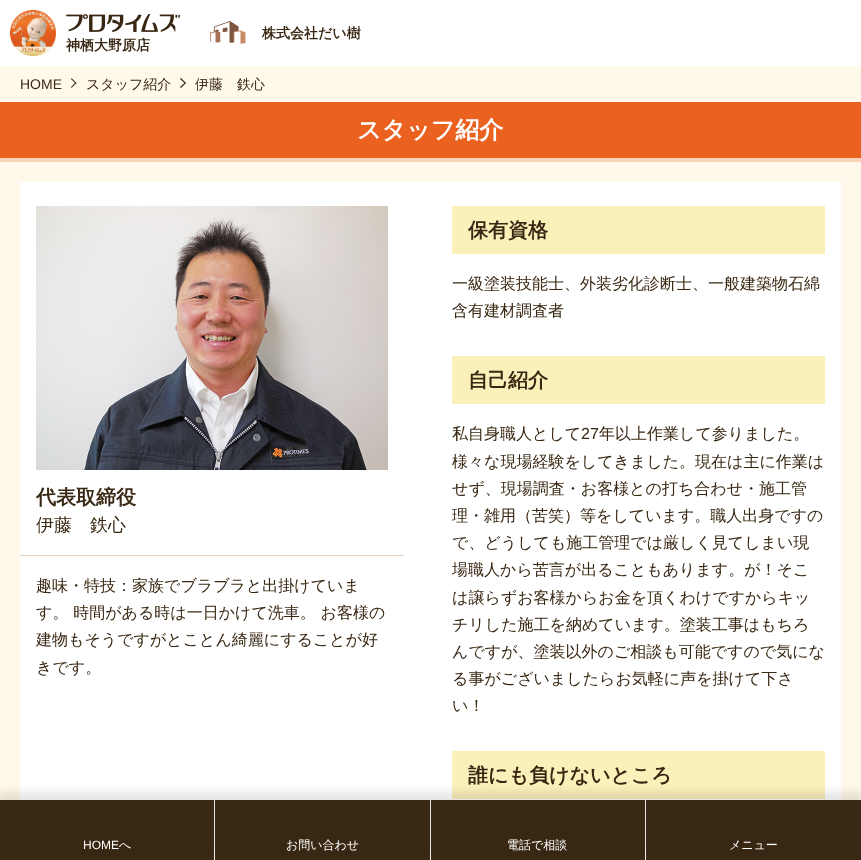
(async () => {
  const canvas = document.querySelector("canvas");
  canvas.width = 861;
  canvas.height = 860;
  const ctx = canvas.getContext("2d");
  ctx.miterLimit = 4;
  ctx.fontKerning = "normal";
  async function loadImage(src) {
    const img = new Image();
    img.src = src;
    await img.decode();
    return img;
  }
  let path;

  ctx.fillStyle = "#fff9eb";
  ctx.fillRect(0, 0, 861, 860);
  ctx.fillStyle = "#ffffff";
  ctx.fillRect(0, 0, 861, 66);
  ctx.drawImage(await loadImage("img/1.png"), 210, 21, 36, 23);
  ctx.drawImage(await loadImage("img/2.png"), 10, 10, 46, 46);
  ctx.drawImage(await loadImage("img/3.png"), 66, 14, 114, 18);
  ctx.fillStyle = "#382712";
  path = new Path2D("M71.5 78L76.5 83L75.5 83.5L71 79Z");
  ctx.fill(path);
  path = new Path2D("M75.5 82.5L76.5 83L71.5 88L71 87Z");
  ctx.fill(path);
  path = new Path2D("M181 78L186 83L185 83.5L180 79Z");
  ctx.fill(path);
  path = new Path2D("M185 82.5L186 83L181 88L180 87Z");
  ctx.fill(path);
  for (const [x, y, w, h, color] of [
    [0, 102, 861, 56, "#eb6120"],
    [0, 158, 861, 4, "#fad3b8"],
    [20, 182, 821, 678, "#ffffff"],
  ]) {
    ctx.fillStyle = color;
    ctx.fillRect(x, y, w, h);
  }
  ctx.drawImage(await loadImage("img/4.png"), 36, 206, 352, 264);
  for (const [x, y, w, h, color] of [
    [20, 555, 384, 1, "#e5d4c2"],
    [452, 206, 373, 48, "#fbefba"],
    [452, 356, 373, 48, "#fbefba"],
    [452, 751, 373, 48, "#fbefba"],
  ]) {
    ctx.fillStyle = color;
    ctx.fillRect(x, y, w, h);
  }
  ctx.fillStyle = "rgba(0, 0, 0, 0.1)";
  ctx.filter = "blur(4px)";
  ctx.beginPath();
  ctx.rect(-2, 792, 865, 64);
  ctx.fill();
  ctx.filter = "none";
  for (const [x, y, w, h, color] of [
    [0, 800, 214, 60, "#382712"],
    [215, 800, 215, 60, "#382712"],
    [431, 800, 214, 60, "#382712"],
    [646, 800, 215, 60, "#382712"],
  ]) {
    ctx.fillStyle = color;
    ctx.fillRect(x, y, w, h);
  }
  ctx.font = "bold 14px WenQuanYi Zen Hei";
  ctx.fillText("株式会社だい樹", 262, 38);
  ctx.fillText("神栖大野原店", 66, 50);
  ctx.font = "14px Liberation Sans";
  ctx.fillText("HOME", 20, 89);
  ctx.font = "500 14px WenQuanYi Zen Hei";
  ctx.fillText("スタッフ紹介", 86, 89);
  ctx.fillText("伊藤　鉄心", 195, 89);
  ctx.font = "bold 24px WenQuanYi Zen Hei";
  ctx.fillStyle = "#ffffff";
  ctx.fillText("スタッフ紹介", 357, 138);
  ctx.font = "bold 20px WenQuanYi Zen Hei";
  ctx.fillStyle = "#382712";
  ctx.fillText("代表取締役", 36, 504);
  ctx.font = "500 18px WenQuanYi Zen Hei";
  ctx.fillText("伊藤　鉄心", 36, 531);
  ctx.font = "500 16px WenQuanYi Zen Hei";
  for (const [text, x, y] of [
    ["趣味・特技：家族でブラブラと出掛けていま", 36, 591],
    ["す。 時間がある時は一日かけて洗車。 お客様の", 36, 618],
    ["建物もそうですがとことん綺麗にすることが好", 36, 645],
    ["きです。", 36, 673],
  ]) {
    ctx.fillText(text, x, y);
  }
  ctx.font = "bold 20px WenQuanYi Zen Hei";
  ctx.fillText("保有資格", 468, 237);
  ctx.font = "500 16px WenQuanYi Zen Hei";
  ctx.fillText("一級塗装技能士、外装劣化診断士、一般建築物石綿", 452, 289);
  ctx.fillText("含有建材調査者", 452, 316);
  ctx.font = "bold 20px WenQuanYi Zen Hei";
  ctx.fillText("自己紹介", 468, 387);
  ctx.font = "500 16px WenQuanYi Zen Hei";
  ctx.fillText("私自身職人として", 452, 439);
  ctx.font = "16px Liberation Sans";
  ctx.fillText("27", 581, 439);
  ctx.font = "500 16px WenQuanYi Zen Hei";
  for (const [text, x, y] of [
    ["年以上作業して参りました。", 599, 439],
    ["様々な現場経験をしてきました。現在は主に作業は", 452, 467],
    ["せず、現場調査・お客様との打ち合わせ・施工管", 452, 494],
    ["理・雑用（苦笑）等をしています。職人出身ですの", 452, 521],
    ["で、どうしても施工管理では厳しく見てしまい現", 452, 548],
    ["場職人から苦言が出ることもあります。が！そこ", 452, 575],
    ["は譲らずお客様からお金を頂くわけですからキッ", 452, 603],
    ["チリした施工を納めています。塗装工事はもちろ", 452, 630],
    ["んですが、塗装以外のご相談も可能ですので気にな", 452, 657],
    ["る事がございましたらお気軽に声を掛けて下さ", 452, 684],
    ["い！", 452, 711],
  ]) {
    ctx.fillText(text, x, y);
  }
  ctx.font = "bold 20px WenQuanYi Zen Hei";
  ctx.fillText("誰にも負けないところ", 468, 782);
  ctx.font = "12px Liberation Sans";
  ctx.fillStyle = "#ffffff";
  ctx.fillText("HOME", 83, 849);
  ctx.font = "500 12px WenQuanYi Zen Hei";
  for (const [text, x, y] of [
    ["へ", 119, 849],
    ["お問い合わせ", 286, 849],
    ["電話で相談", 507, 849],
    ["メニュー", 729, 849],
  ]) {
    ctx.fillText(text, x, y);
  }
})();
